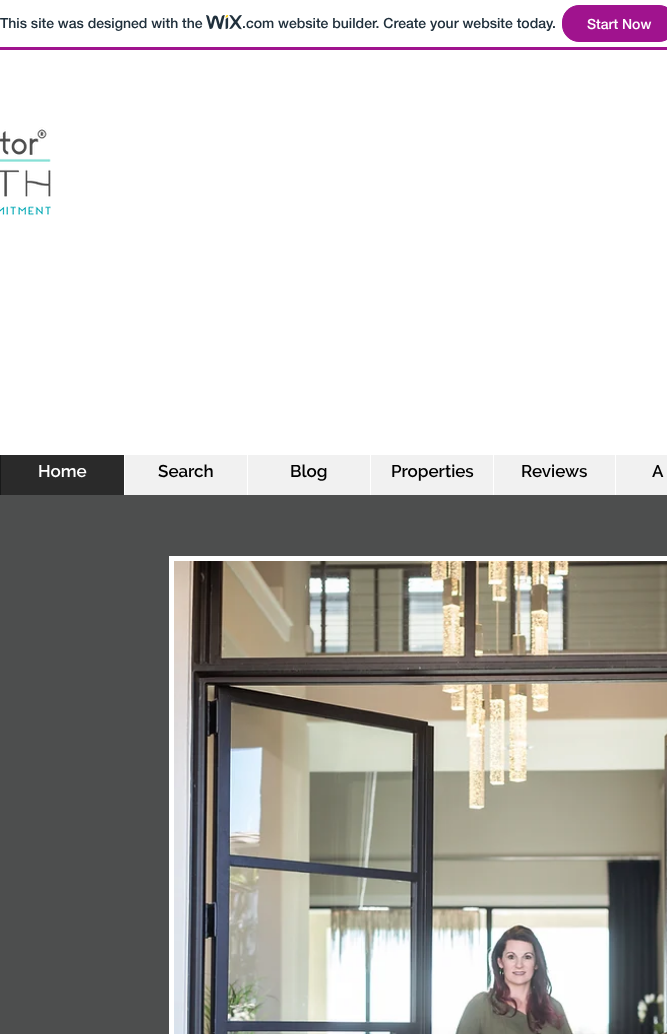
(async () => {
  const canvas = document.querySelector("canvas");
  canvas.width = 667;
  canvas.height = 1034;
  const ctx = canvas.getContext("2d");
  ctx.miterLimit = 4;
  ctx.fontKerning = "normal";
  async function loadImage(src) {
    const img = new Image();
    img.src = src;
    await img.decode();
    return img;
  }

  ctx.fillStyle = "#ffffff";
  ctx.fillRect(0, 0, 667, 1034);
  ctx.fillStyle = "#a0138e";
  ctx.fillRect(0, 47, 667, 3);
  ctx.drawImage(await loadImage("img/1.png"), 206, 15, 36, 15);
  ctx.beginPath();
  ctx.roundRect(562.5, 5.5, 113, 36, 16.5);
  ctx.fill();
  ctx.strokeStyle = "#a0138e";
  ctx.stroke();
  ctx.drawImage(await loadImage("img/2.png"), 0, 127, 51, 89);
  for (const [x, y, w, h, color] of [
    [0, 455, 1, 40, "#181919"],
    [125, 455, 542, 40, "#f1f1f1"],
    [1, 455, 123, 40, "#2a2a2a"],
    [247, 448, 1, 47, "#ffffff"],
    [370, 448, 1, 47, "#ffffff"],
    [493, 448, 1, 47, "#ffffff"],
    [615, 448, 1, 47, "#ffffff"],
    [0, 495, 667, 539, "#4d4e4e"],
    [169, 556, 498, 478, "#ffffff"],
  ]) {
    ctx.fillStyle = color;
    ctx.fillRect(x, y, w, h);
  }
  ctx.drawImage(await loadImage("img/3.png"), 174, 561, 493, 473);
  ctx.font = "500 14px 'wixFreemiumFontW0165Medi'";
  ctx.fillStyle = "#20303c";
  ctx.fillText("This site was designed with the", 0, 28);
  ctx.fillText(".com website builder. Create your website today.", 242, 28);
  ctx.fillStyle = "#ffffff";
  ctx.fillText("Start Now", 587, 29);
  ctx.font = "600 17px Raleway";
  ctx.fillText("Home", 38, 477);
  ctx.fillStyle = "#000000";
  for (const [text, x, y] of [
    ["Search", 158, 477],
    ["Blog", 290, 477],
    ["Properties", 391, 477],
    ["Reviews", 521, 477],
    ["A", 652, 477],
  ]) {
    ctx.fillText(text, x, y);
  }
})();
